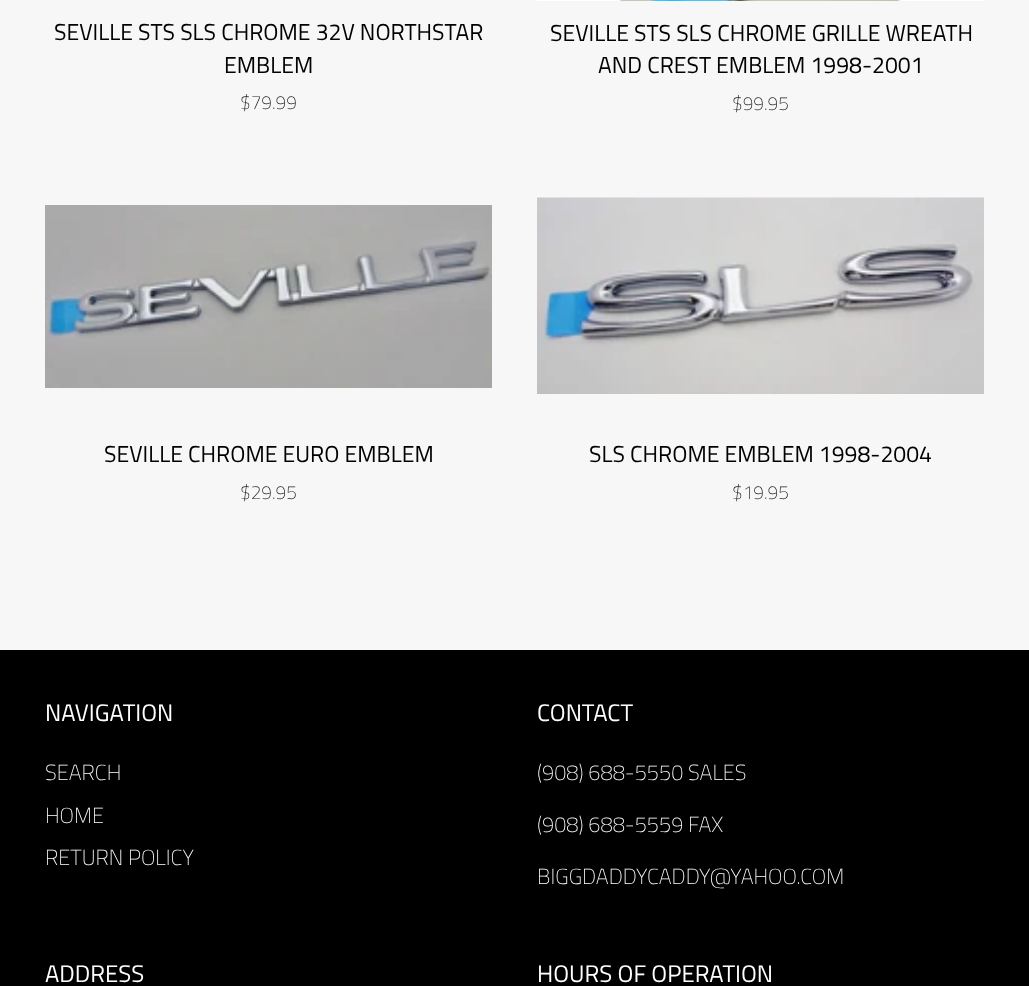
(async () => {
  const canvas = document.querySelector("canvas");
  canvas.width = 1029;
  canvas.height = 986;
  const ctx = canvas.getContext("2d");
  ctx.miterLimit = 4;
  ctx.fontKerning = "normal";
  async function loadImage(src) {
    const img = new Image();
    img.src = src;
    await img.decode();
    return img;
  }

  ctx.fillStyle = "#f7f7f7";
  ctx.fillRect(0, 0, 1029, 986);
  ctx.drawImage(await loadImage("img/1.png"), 537, 0, 447, 1);
  ctx.drawImage(await loadImage("img/2.png"), 45, 205, 447, 183);
  ctx.drawImage(await loadImage("img/3.png"), 537, 197, 447, 197);
  ctx.fillStyle = "#000000";
  ctx.fillRect(0, 650, 1029, 336);
  ctx.font = "23px Titillium Web";
  ctx.fillText("SEVILLE STS SLS CHROME 32V NORTHSTAR", 54, 40);
  ctx.fillText("EMBLEM", 224, 73);
  ctx.font = "300 19px Titillium Web";
  ctx.fillStyle = "#1a1a1a";
  ctx.fillText("$79.99", 240, 109);
  ctx.font = "23px Titillium Web";
  ctx.fillStyle = "#000000";
  ctx.fillText("SEVILLE STS SLS CHROME GRILLE WREATH", 550, 41);
  ctx.fillText("AND CREST EMBLEM 1998-2001", 598, 73);
  ctx.font = "300 19px Titillium Web";
  ctx.fillStyle = "#1a1a1a";
  ctx.fillText("$99.95", 732, 110);
  ctx.font = "23px Titillium Web";
  ctx.fillStyle = "#000000";
  ctx.fillText("SEVILLE CHROME EURO EMBLEM", 104, 462);
  ctx.font = "300 19px Titillium Web";
  ctx.fillStyle = "#1a1a1a";
  ctx.fillText("$29.95", 240, 499);
  ctx.font = "23px Titillium Web";
  ctx.fillStyle = "#000000";
  ctx.fillText("SLS CHROME EMBLEM 1998-2004", 589, 462);
  ctx.font = "300 19px Titillium Web";
  ctx.fillStyle = "#1a1a1a";
  ctx.fillText("$19.95", 732, 499);
  ctx.font = "24px Titillium Web";
  ctx.fillStyle = "#ffffff";
  ctx.fillText("NAVIGATION", 45, 721);
  ctx.font = "300 21.7px Titillium Web";
  for (const [text, x, y] of [
    ["SEARCH", 45, 780],
    ["HOME", 45, 823],
    ["RETURN POLICY", 45, 865],
  ]) {
    ctx.fillText(text, x, y);
  }
  ctx.font = "24px Titillium Web";
  ctx.fillText("CONTACT", 537, 721);
  ctx.font = "300 21.7px Titillium Web";
  for (const [text, x, y] of [
    ["(908) 688-5550 SALES", 537, 780],
    ["(908) 688-5559 FAX", 537, 832],
    ["BIGGDADDYCADDY@YAHOO.COM", 537, 884],
  ]) {
    ctx.fillText(text, x, y);
  }
  ctx.font = "24px Titillium Web";
  ctx.fillText("ADDRESS", 45, 982);
  ctx.fillText("HOURS OF OPERATION", 537, 982);
})();
